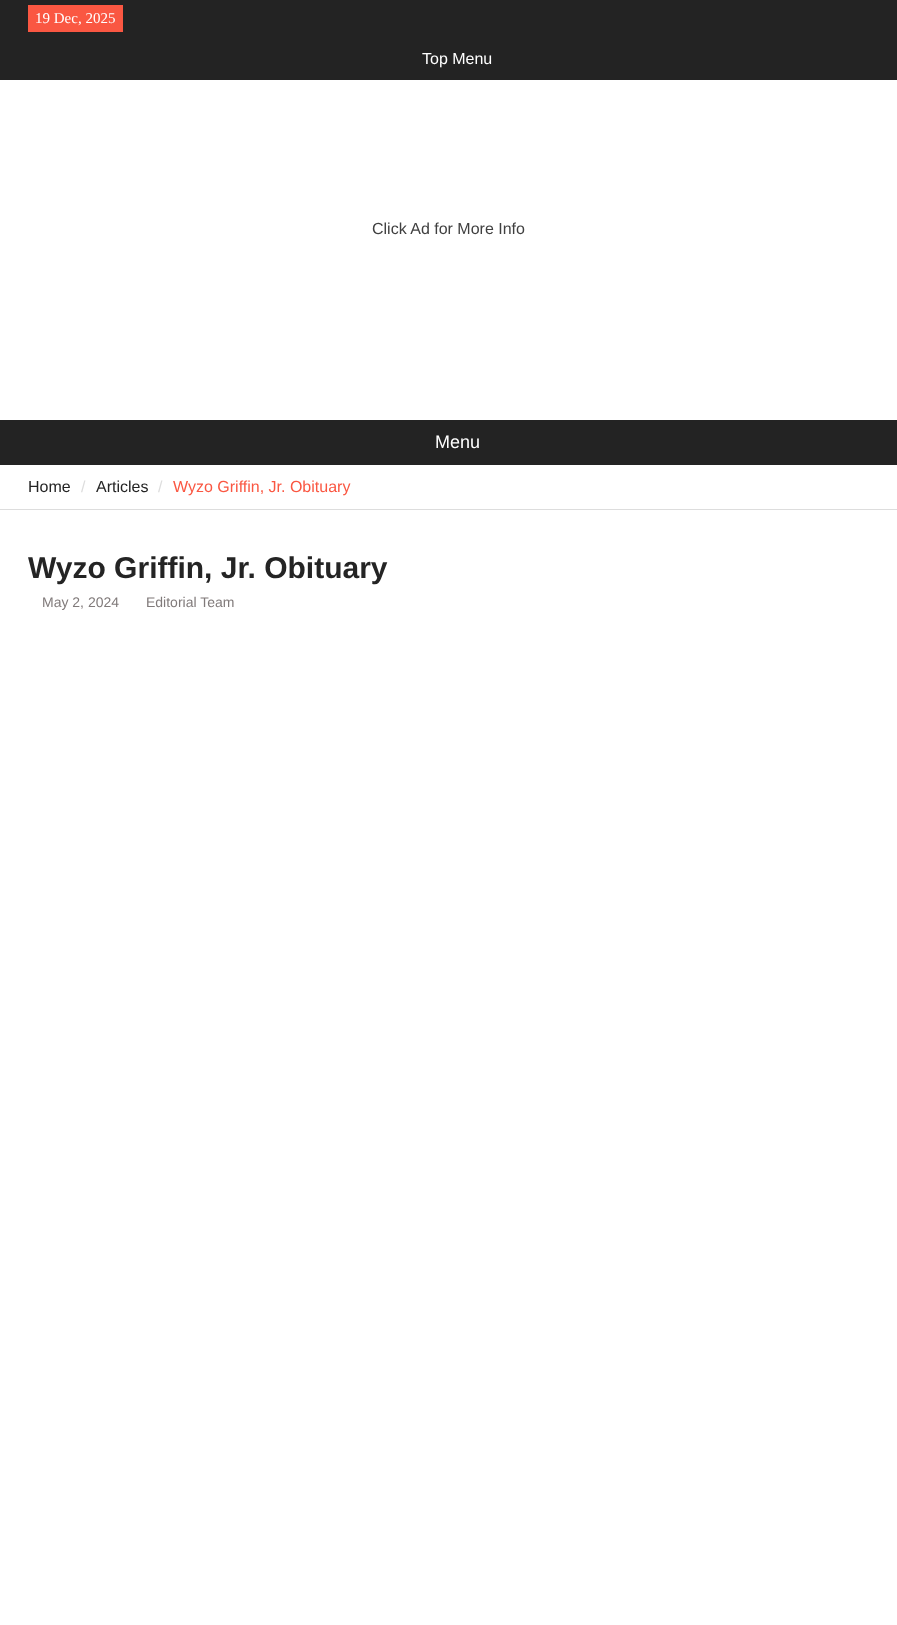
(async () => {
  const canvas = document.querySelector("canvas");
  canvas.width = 897;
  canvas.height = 1625;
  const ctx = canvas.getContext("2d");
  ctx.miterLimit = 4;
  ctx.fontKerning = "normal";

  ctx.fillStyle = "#ffffff";
  ctx.fillRect(0, 0, 897, 1625);
  for (const [x, y, w, h, color] of [
    [0, 0, 897, 80, "#232323"],
    [28, 5, 95, 27, "#fa5742"],
    [0, 420, 897, 45, "#232323"],
    [0, 509, 897, 1, "#dddddd"],
  ]) {
    ctx.fillStyle = color;
    ctx.fillRect(x, y, w, h);
  }
  ctx.font = "15px Liberation Serif";
  ctx.fillStyle = "#ffffff";
  ctx.fillText("19 Dec, 2025", 35, 23);
  ctx.font = "16px Liberation Sans";
  ctx.fillText("Top Menu", 422, 64);
  ctx.fillStyle = "#404040";
  ctx.fillText("Click Ad for More Info", 372, 234);
  ctx.font = "18px Liberation Sans";
  ctx.fillStyle = "#ffffff";
  ctx.fillText("Menu", 435, 448);
  ctx.font = "16px Liberation Sans";
  ctx.fillStyle = "#242424";
  ctx.fillText("Home", 28, 492);
  ctx.fillStyle = "#dddddd";
  ctx.fillText("/", 81, 492);
  ctx.fillStyle = "#242424";
  ctx.fillText("Articles", 96, 492);
  ctx.fillStyle = "#dddddd";
  ctx.fillText("/", 158, 492);
  ctx.fillStyle = "#fa5742";
  ctx.fillText("Wyzo Griffin, Jr. Obituary", 173, 492);
  ctx.font = "bold 30px Liberation Sans";
  ctx.fillStyle = "#242424";
  ctx.fillText("Wyzo Griffin, Jr. Obituary", 28, 578);
  ctx.font = "14px Liberation Sans";
  ctx.fillStyle = "#807a7a";
  ctx.fillText("May 2, 2024", 42, 607);
  ctx.fillText("Editorial Team", 146, 607);
})();
